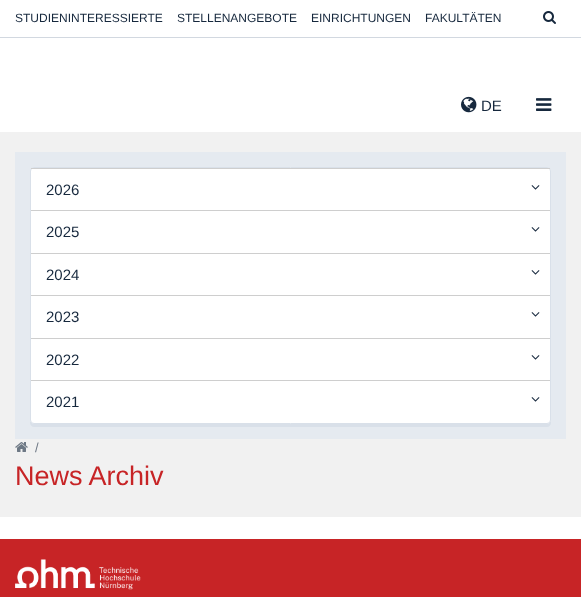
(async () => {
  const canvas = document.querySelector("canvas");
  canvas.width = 581;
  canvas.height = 597;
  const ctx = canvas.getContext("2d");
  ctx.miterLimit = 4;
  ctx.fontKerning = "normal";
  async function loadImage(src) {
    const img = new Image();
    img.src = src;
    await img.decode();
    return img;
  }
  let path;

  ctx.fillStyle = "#ffffff";
  ctx.fillRect(0, 0, 581, 597);
  ctx.fillStyle = "#d2d8e0";
  ctx.fillRect(0, 37, 581, 1);
  ctx.drawImage(await loadImage("img/1.png"), 543, 11, 13, 13);
  ctx.drawImage(await loadImage("img/2.png"), 461, 96, 16, 17);
  ctx.drawImage(await loadImage("img/3.png"), 536, 98, 16, 13);
  ctx.fillStyle = "#f1f1f1";
  ctx.fillRect(0, 132, 581, 385);
  ctx.fillStyle = "#e5eaf0";
  ctx.fillRect(15, 152, 551, 287);
  ctx.fillStyle = "#d9e0e9";
  path = new Path2D("M30 420V423C30 425 32 427 34 427H547C549 427 551 425 551 423V420C551 422 549 424 547 424H34C32 424 30 422 30 420Z");
  ctx.fill(path);
  ctx.fillStyle = "#ffffff";
  ctx.beginPath();
  ctx.roundRect(30.5, 167.5, 520, 256, 3.5);
  ctx.fill();
  ctx.strokeStyle = "#d9e0e9";
  ctx.stroke();
  ctx.fillStyle = "#cecece";
  ctx.fillRect(31, 168, 519, 1);
  ctx.drawImage(await loadImage("img/4.png"), 531, 185, 9, 5);
  ctx.fillRect(31, 210, 519, 1);
  ctx.drawImage(await loadImage("img/4.png"), 531, 227, 9, 5);
  ctx.fillRect(31, 253, 519, 1);
  ctx.drawImage(await loadImage("img/4.png"), 531, 270, 9, 5);
  ctx.fillRect(31, 295, 519, 1);
  ctx.drawImage(await loadImage("img/4.png"), 531, 312, 9, 5);
  ctx.fillRect(31, 338, 519, 1);
  ctx.drawImage(await loadImage("img/4.png"), 531, 355, 9, 5);
  ctx.fillRect(31, 380, 519, 1);
  ctx.drawImage(await loadImage("img/4.png"), 531, 397, 9, 5);
  ctx.drawImage(await loadImage("img/5.png"), 15, 442, 13, 10);
  ctx.fillStyle = "#c72426";
  ctx.fillRect(0, 539, 581, 58);
  ctx.drawImage(await loadImage("img/6.png"), 15, 559, 126, 31);
  ctx.font = "12px Liberation Sans";
  ctx.fillStyle = "#16283d";
  for (const [text, x, y] of [
    ["STUDIENINTERESSIERTE", 15, 22],
    ["STELLENANGEBOTE", 177, 22],
    ["EINRICHTUNGEN", 311, 22],
    ["FAKULTÄTEN", 425, 22],
  ]) {
    ctx.fillText(text, x, y);
  }
  ctx.font = "15px Liberation Sans";
  for (const [text, x, y] of [
    ["DE", 481, 111],
    ["2026", 46, 195],
    ["2025", 46, 237],
    ["2024", 46, 280],
    ["2023", 46, 322],
    ["2022", 46, 365],
    ["2021", 46, 407],
  ]) {
    ctx.fillText(text, x, y);
  }
  ctx.font = "13px Liberation Sans";
  ctx.fillStyle = "#6e7885";
  ctx.fillText("/", 35, 452);
  ctx.font = "27px Liberation Sans";
  ctx.fillStyle = "#c72426";
  ctx.fillText("News Archiv", 15, 485);
})();
